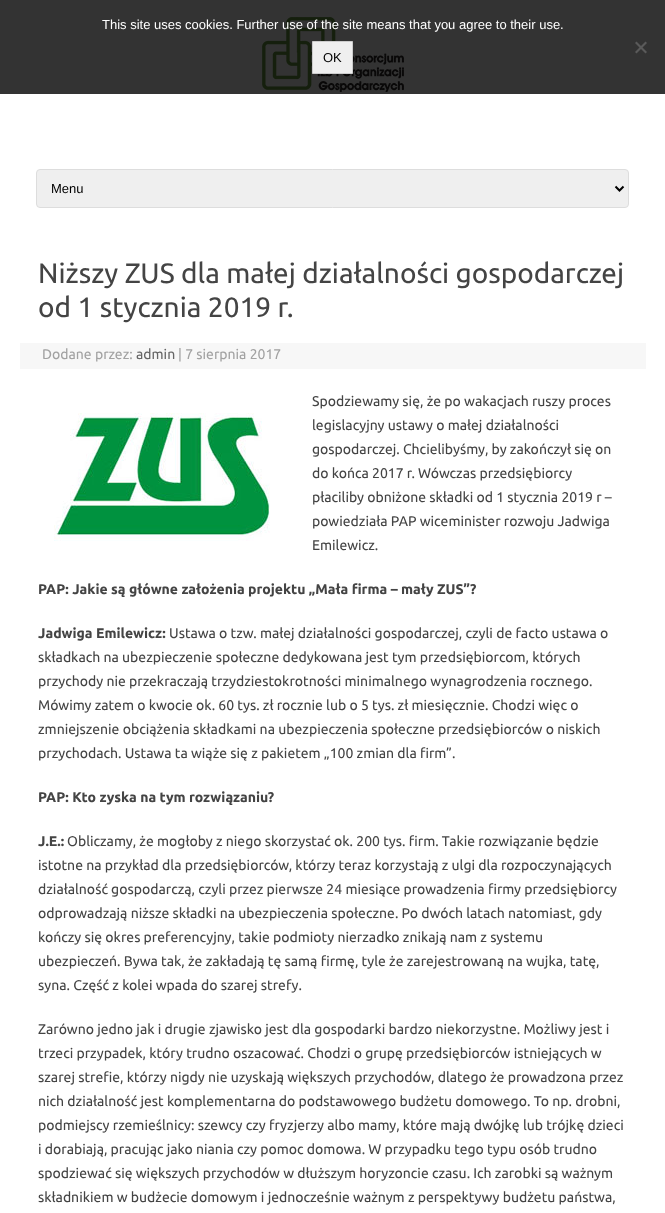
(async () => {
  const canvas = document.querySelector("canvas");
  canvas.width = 665;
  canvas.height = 1213;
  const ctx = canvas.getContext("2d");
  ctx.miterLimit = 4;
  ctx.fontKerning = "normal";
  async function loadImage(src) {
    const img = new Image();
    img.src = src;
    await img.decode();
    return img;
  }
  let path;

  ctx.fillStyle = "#ffffff";
  ctx.fillRect(0, 0, 665, 1213);
  ctx.fillStyle = "#333333";
  ctx.fillRect(0, 0, 665, 94);
  ctx.fillStyle = "#5a5a5a";
  path = new Path2D("M645.5 41.5L647 43L636.5 53.5L635 52Z");
  ctx.fill(path);
  path = new Path2D("M635 43L636.5 41.5L647 52L645.5 53.5Z");
  ctx.fill(path);
  ctx.drawImage(await loadImage("img/1.png"), 262, 17, 142, 75);
  ctx.fillStyle = "#efefef";
  ctx.beginPath();
  ctx.rect(312.5, 41.5, 40, 32);
  ctx.fill();
  ctx.strokeStyle = "#cccccc";
  ctx.stroke();
  ctx.beginPath();
  ctx.roundRect(36.5, 169.5, 592, 38, 3.5);
  ctx.fill();
  ctx.strokeStyle = "#dddddd";
  ctx.stroke();
  path = new Path2D("M615.5 186.5L619.5 190.5L623.5 186.5");
  ctx.strokeStyle = "#000000";
  ctx.lineWidth = 2;
  ctx.stroke(path);
  ctx.fillStyle = "#f7f7f7";
  ctx.fillRect(20, 343, 626, 26);
  ctx.drawImage(await loadImage("img/2.png"), 54, 413, 216, 128);
  ctx.font = "13px Liberation Sans";
  ctx.fillStyle = "#ffffff";
  ctx.fillText("This site uses cookies. Further use of the site means that you agree to their use.", 102, 29);
  ctx.fillStyle = "#000000";
  ctx.fillText("OK", 323, 62);
  ctx.fillText("Menu", 51, 193);
  ctx.font = "28px Ubuntu";
  ctx.fillStyle = "#444444";
  ctx.fillText("Niższy ZUS dla małej działalności gospodarczej", 38, 283);
  ctx.fillText("od 1 stycznia 2019 r.", 38, 317);
  ctx.font = "14px Ubuntu";
  ctx.fillStyle = "#a2a2a2";
  ctx.fillText("Dodane przez:", 42, 359);
  ctx.fillStyle = "#666666";
  ctx.fillText("admin", 136, 359);
  ctx.fillStyle = "#a2a2a2";
  ctx.fillText("| 7 sierpnia 2017", 178, 359);
  ctx.fillStyle = "#444444";
  for (const [text, x, y] of [
    ["Spodziewamy się, że po wakacjach ruszy proces", 312, 406],
    ["legislacyjny ustawy o małej działalności", 312, 430],
    ["gospodarczej. Chcielibyśmy, by zakończył się on", 312, 454],
    ["do końca 2017 r. Wówczas przedsiębiorcy", 312, 478],
    ["płaciliby obniżone składki od 1 stycznia 2019 r –", 312, 502],
    ["powiedziała PAP wiceminister rozwoju Jadwiga", 312, 526],
    ["Emilewicz.", 312, 550],
  ]) {
    ctx.fillText(text, x, y);
  }
  ctx.font = "bold 14px Ubuntu";
  ctx.fillText("PAP: Jakie są główne założenia projektu „Mała firma – mały ZUS”?", 38, 594);
  ctx.fillText("Jadwiga Emilewicz:", 38, 638);
  ctx.font = "14px Ubuntu";
  for (const [text, x, y] of [
    ["Ustawa o tzw. małej działalności gospodarczej, czyli de facto ustawa o", 169, 638],
    ["składkach na ubezpieczenie społeczne dedykowana jest tym przedsiębiorcom, których", 38, 662],
    ["przychody nie przekraczają trzydziestokrotności minimalnego wynagrodzenia rocznego.", 38, 686],
    ["Mówimy zatem o kwocie ok. 60 tys. zł rocznie lub o 5 tys. zł miesięcznie. Chodzi więc o", 38, 710],
    ["zmniejszenie obciążenia składkami na ubezpieczenia społeczne przedsiębiorców o niskich", 38, 734],
    ["przychodach. Ustawa ta wiąże się z pakietem „100 zmian dla firm”.", 38, 758],
  ]) {
    ctx.fillText(text, x, y);
  }
  ctx.font = "bold 14px Ubuntu";
  ctx.fillText("PAP: Kto zyska na tym rozwiązaniu?", 38, 802);
  ctx.fillText("J.E.:", 38, 846);
  ctx.font = "14px Ubuntu";
  for (const [text, x, y] of [
    ["Obliczamy, że mogłoby z niego skorzystać ok. 200 tys. firm. Takie rozwiązanie będzie", 67, 846],
    ["istotne na przykład dla przedsiębiorców, którzy teraz korzystają z ulgi dla rozpoczynających", 38, 870],
    ["działalność gospodarczą, czyli przez pierwsze 24 miesiące prowadzenia firmy przedsiębiorcy", 38, 894],
    ["odprowadzają niższe składki na ubezpieczenia społeczne. Po dwóch latach natomiast, gdy", 38, 918],
    ["kończy się okres preferencyjny, takie podmioty nierzadko znikają nam z systemu", 38, 942],
    ["ubezpieczeń. Bywa tak, że zakładają tę samą firmę, tyle że zarejestrowaną na wujka, tatę,", 38, 966],
    ["syna. Część z kolei wpada do szarej strefy.", 38, 990],
    ["Zarówno jedno jak i drugie zjawisko jest dla gospodarki bardzo niekorzystne. Możliwy jest i", 38, 1034],
    ["trzeci przypadek, który trudno oszacować. Chodzi o grupę przedsiębiorców istniejących w", 38, 1058],
    ["szarej strefie, którzy nigdy nie uzyskają większych przychodów, dlatego że prowadzona przez", 38, 1082],
    ["nich działalność jest komplementarna do podstawowego budżetu domowego. To np. drobni,", 38, 1106],
    ["podmiejscy rzemieślnicy: szewcy czy fryzjerzy albo mamy, które mają dwójkę lub trójkę dzieci", 38, 1130],
    ["i dorabiają, pracując jako niania czy pomoc domowa. W przypadku tego typu osób trudno", 38, 1154],
    ["spodziewać się większych przychodów w dłuższym horyzoncie czasu. Ich zarobki są ważnym", 38, 1178],
    ["składnikiem w budżecie domowym i jednocześnie ważnym z perspektywy budżetu państwa,", 38, 1202],
  ]) {
    ctx.fillText(text, x, y);
  }
})();
